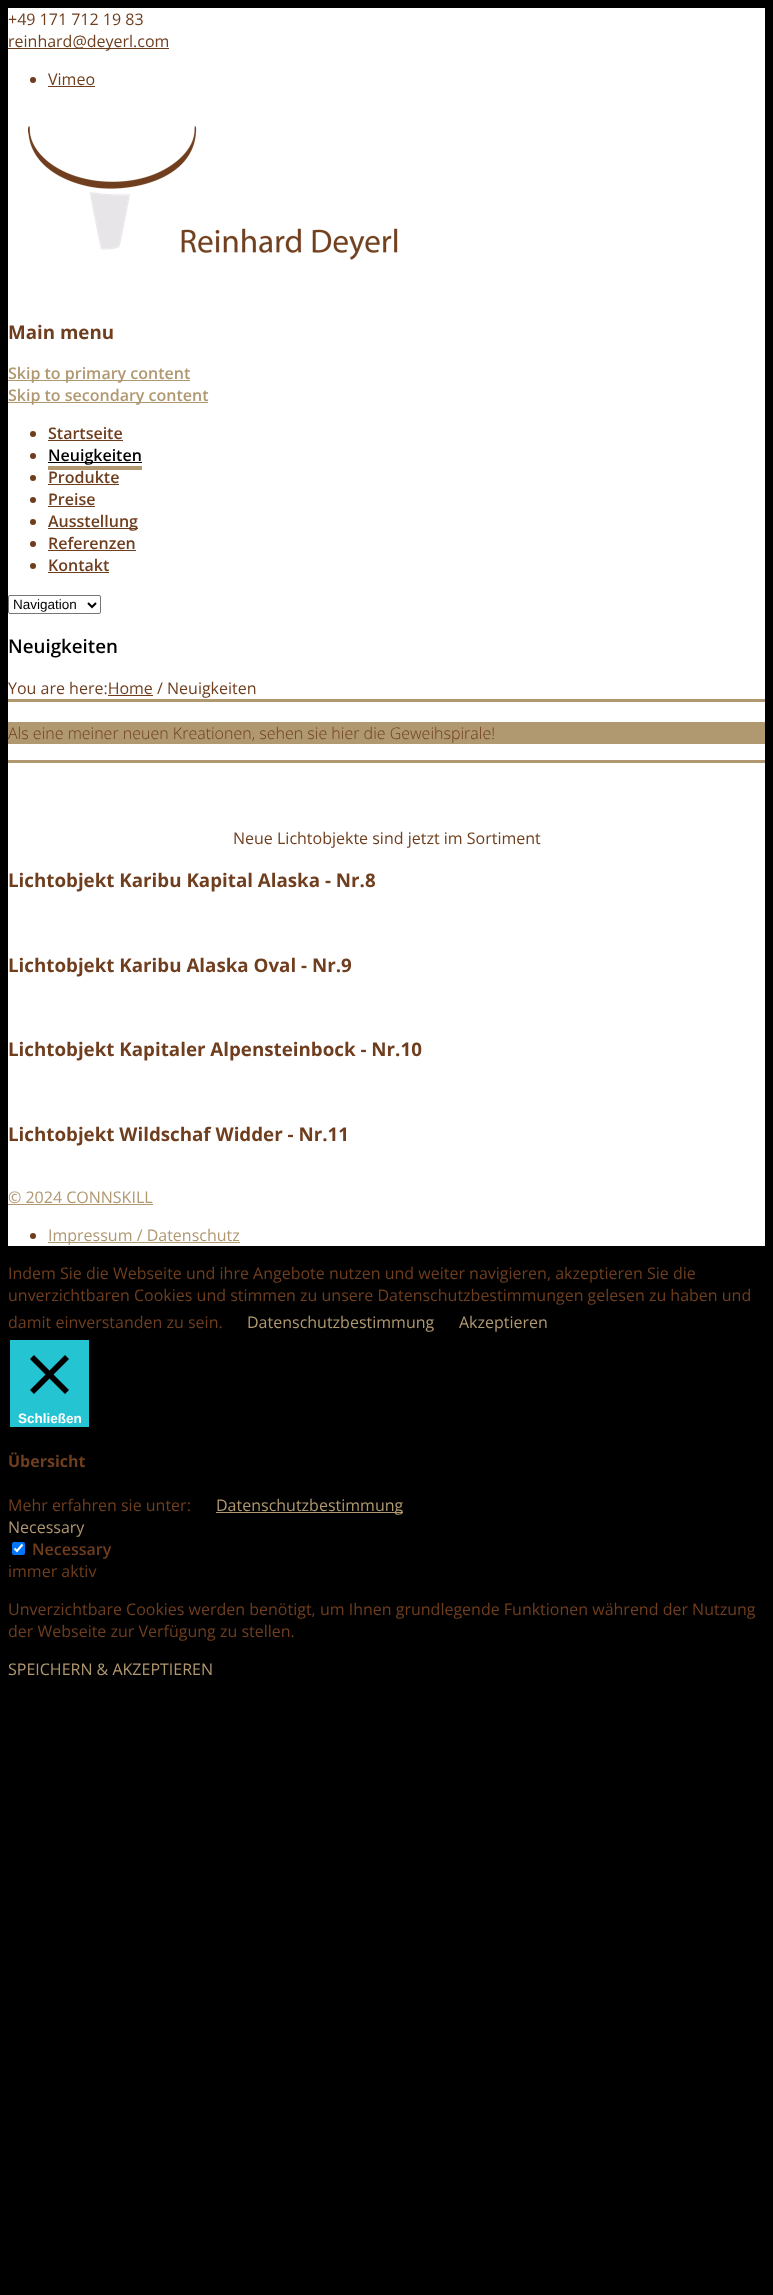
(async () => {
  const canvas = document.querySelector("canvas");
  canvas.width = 773;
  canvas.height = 2295;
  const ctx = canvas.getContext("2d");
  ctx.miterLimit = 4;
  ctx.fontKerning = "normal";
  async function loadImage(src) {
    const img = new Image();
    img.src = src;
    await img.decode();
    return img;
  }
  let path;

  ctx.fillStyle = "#000000";
  ctx.fillRect(0, 0, 773, 2295);
  ctx.fillStyle = "#ffffff";
  ctx.fillRect(8, 8, 757, 1238);
  ctx.fillStyle = "#6f3e1e";
  ctx.fillRect(8, 48, 161, 1);
  ctx.beginPath();
  ctx.arc(33, 80, 3, 0, Math.PI * 2);
  ctx.fill();
  ctx.fillRect(48, 86, 47, 1);
  ctx.drawImage(await loadImage("img/1.png"), 28, 126, 370, 134);
  ctx.fillStyle = "#b09871";
  ctx.fillRect(8, 380, 182, 1);
  ctx.fillRect(8, 402, 200, 1);
  ctx.fillStyle = "#6f3e1e";
  ctx.beginPath();
  ctx.arc(33, 434, 3, 0, Math.PI * 2);
  ctx.fill();
  ctx.fillRect(48, 440, 75, 1);
  ctx.beginPath();
  ctx.arc(33, 456, 3, 0, Math.PI * 2);
  ctx.fill();
  ctx.fillStyle = "#b09871";
  ctx.fillRect(48, 466, 94, 4);
  ctx.fillStyle = "#000000";
  ctx.fillRect(48, 462, 94, 1);
  ctx.fillStyle = "#6f3e1e";
  ctx.beginPath();
  ctx.arc(33, 478, 3, 0, Math.PI * 2);
  ctx.fill();
  ctx.fillRect(48, 484, 71, 1);
  ctx.beginPath();
  ctx.arc(33, 500, 3, 0, Math.PI * 2);
  ctx.fill();
  ctx.fillRect(48, 506, 47, 1);
  ctx.beginPath();
  ctx.arc(33, 522, 3, 0, Math.PI * 2);
  ctx.fill();
  ctx.fillRect(48, 528, 90, 1);
  ctx.beginPath();
  ctx.arc(33, 544, 3, 0, Math.PI * 2);
  ctx.fill();
  ctx.fillRect(48, 550, 88, 1);
  ctx.beginPath();
  ctx.arc(33, 566, 3, 0, Math.PI * 2);
  ctx.fill();
  ctx.fillRect(48, 572, 61, 1);
  ctx.beginPath();
  ctx.roundRect(8.5, 595.5, 92, 18, 1.5);
  ctx.strokeStyle = "#767676";
  ctx.stroke();
  path = new Path2D("M88 603L92 607L96 603");
  ctx.strokeStyle = "#000000";
  ctx.lineWidth = 2;
  ctx.stroke(path);
  for (const [x, y, w, h, color] of [
    [108, 695, 45, 1, "#6f3e1e"],
    [8, 699, 757, 3, "#b09871"],
    [8, 760, 757, 3, "#b09871"],
    [8, 722, 757, 22, "#b09871"],
    [8, 1204, 145, 1, "#b09871"],
  ]) {
    ctx.fillStyle = color;
    ctx.fillRect(x, y, w, h);
  }
  ctx.fillStyle = "#6f3e1e";
  ctx.beginPath();
  ctx.arc(33, 1236, 3, 0, Math.PI * 2);
  ctx.fill();
  ctx.fillStyle = "#b09871";
  ctx.fillRect(48, 1242, 192, 1);
  ctx.fillStyle = "#25c4d3";
  ctx.fillRect(10, 1340, 79, 87);
  ctx.fillStyle = "#000000";
  path = new Path2D("M69 1359L65 1355L49.5 1370.5L34 1355L30 1359L45.5 1374.5L30 1390L34 1394L49.5 1378.5L65 1394L69 1390L53.5 1374.5Z");
  ctx.fill(path);
  ctx.fillStyle = "#b09871";
  ctx.fillRect(216, 1512, 187, 1);
  ctx.fillStyle = "#0075ff";
  ctx.beginPath();
  ctx.roundRect(12, 1542, 13, 13, 2);
  ctx.fill();
  path = new Path2D("M14.5 1548.5L17 1551L22.5 1544.5");
  ctx.strokeStyle = "#ffffff";
  ctx.lineWidth = 2.1;
  ctx.stroke(path);
  ctx.font = "16px Open Sans";
  ctx.fillStyle = "#6f3e1e";
  for (const [text, x, y] of [
    ["+49 171 712 19 83", 8, 25],
    ["reinhard@deyerl.com", 8, 47],
    ["Vimeo", 48, 85],
  ]) {
    ctx.fillText(text, x, y);
  }
  ctx.font = "bold 18.75px Open Sans";
  ctx.fillText("Main menu", 8, 339);
  ctx.font = "600 16px Open Sans";
  ctx.fillStyle = "#b09871";
  ctx.fillText("Skip to primary content", 8, 379);
  ctx.fillText("Skip to secondary content", 8, 401);
  ctx.fillStyle = "#6f3e1e";
  ctx.fillText("Startseite", 48, 439);
  ctx.fillStyle = "#000000";
  ctx.fillText("Neuigkeiten", 48, 461);
  ctx.fillStyle = "#6f3e1e";
  for (const [text, x, y] of [
    ["Produkte", 48, 483],
    ["Preise", 48, 505],
    ["Ausstellung", 48, 527],
    ["Referenzen", 48, 549],
    ["Kontakt", 48, 571],
  ]) {
    ctx.fillText(text, x, y);
  }
  ctx.font = "13.5px Liberation Sans";
  ctx.fillStyle = "#000000";
  ctx.fillText("Navigation", 13, 609);
  ctx.font = "600 18.75px Open Sans";
  ctx.fillText("Neuigkeiten", 8, 653);
  ctx.font = "16px Open Sans";
  ctx.fillStyle = "#6f3e1e";
  ctx.fillText("You are here:Home / Neuigkeiten", 8, 694);
  ctx.font = "300 16px Open Sans";
  ctx.fillText("Als eine meiner neuen Kreationen, sehen sie hier die Geweihspirale!", 8, 739);
  ctx.font = "16px Open Sans";
  ctx.fillText("Neue Lichtobjekte sind jetzt im Sortiment", 233, 844);
  ctx.font = "bold 18.75px Open Sans";
  for (const [text, x, y] of [
    ["Lichtobjekt Karibu Kapital Alaska - Nr.8", 8, 887],
    ["Lichtobjekt Karibu Alaska Oval - Nr.9", 8, 972],
    ["Lichtobjekt Kapitaler Alpensteinbock - Nr.10", 8, 1056],
    ["Lichtobjekt Wildschaf Widder - Nr.11", 8, 1141],
  ]) {
    ctx.fillText(text, x, y);
  }
  ctx.font = "16px Open Sans";
  ctx.fillStyle = "#b09871";
  ctx.fillText("© 2024 CONNSKILL", 8, 1203);
  ctx.fillText("Impressum / Datenschutz", 48, 1241);
  ctx.fillStyle = "#6f3e1e";
  for (const [text, x, y] of [
    ["Indem Sie die Webseite und ihre Angebote nutzen und weiter navigieren, akzeptieren Sie die", 8, 1279],
    ["unverzichtbaren Cookies und stimmen zu unsere Datenschutzbestimmungen gelesen zu haben und", 8, 1301],
    ["damit einverstanden zu sein.", 8, 1328],
  ]) {
    ctx.fillText(text, x, y);
  }
  ctx.fillStyle = "#b09871";
  ctx.fillText("Datenschutzbestimmung", 247, 1328);
  ctx.fillText("Akzeptieren", 459, 1328);
  ctx.font = "bold 13.5px Liberation Sans";
  ctx.fillStyle = "#ffffff";
  ctx.fillText("Schließen", 18, 1423);
  ctx.font = "bold 16px Open Sans";
  ctx.fillStyle = "#6f3e1e";
  ctx.fillText("Übersicht", 8, 1467);
  ctx.font = "16px Open Sans";
  ctx.fillText("Mehr erfahren sie unter:", 8, 1511);
  ctx.fillStyle = "#b09871";
  ctx.fillText("Datenschutzbestimmung", 216, 1511);
  ctx.fillText("Necessary", 8, 1533);
  ctx.font = "600 16px Open Sans";
  ctx.fillStyle = "#6f3e1e";
  ctx.fillText("Necessary", 32, 1555);
  ctx.font = "16px Open Sans";
  for (const [text, x, y] of [
    ["immer aktiv", 8, 1577],
    ["Unverzichtbare Cookies werden benötigt, um Ihnen grundlegende Funktionen während der Nutzung", 8, 1615],
    ["der Webseite zur Verfügung zu stellen.", 8, 1637],
  ]) {
    ctx.fillText(text, x, y);
  }
  ctx.fillStyle = "#b09871";
  ctx.fillText("SPEICHERN & AKZEPTIEREN", 8, 1675);
})();
